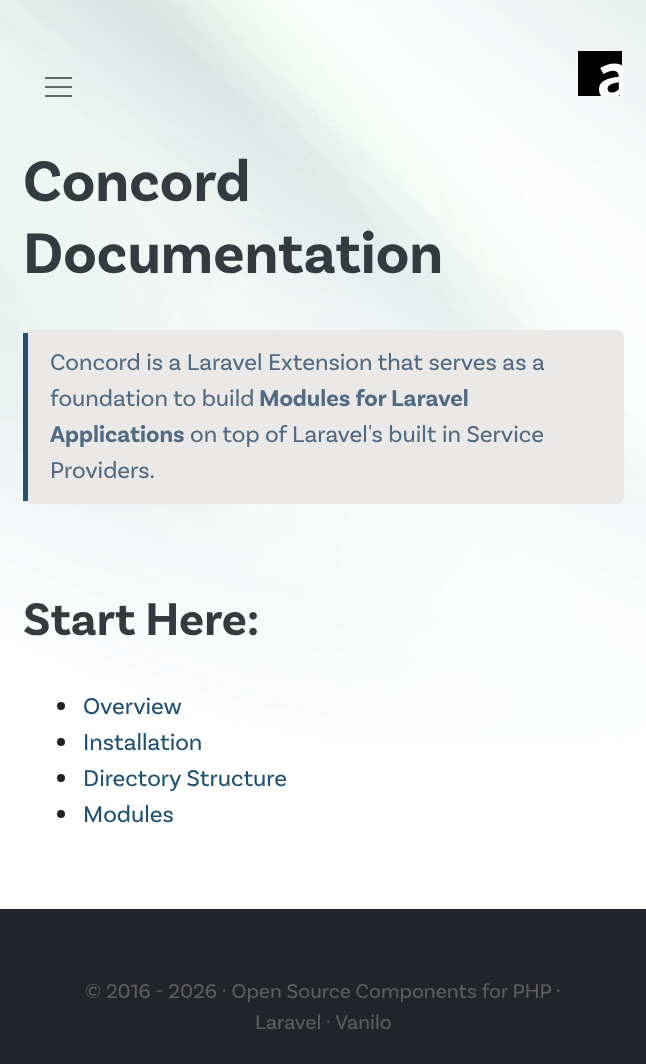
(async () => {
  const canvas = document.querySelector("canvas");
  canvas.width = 646;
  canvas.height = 1064;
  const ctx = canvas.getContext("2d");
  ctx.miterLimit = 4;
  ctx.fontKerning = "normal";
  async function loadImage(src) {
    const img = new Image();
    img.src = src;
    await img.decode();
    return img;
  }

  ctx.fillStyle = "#ffffff";
  ctx.fillRect(0, 0, 646, 1064);
  ctx.drawImage(await loadImage("img/1.png"), 0, 0, 646, 741);
  ctx.drawImage(await loadImage("img/2.png"), 45, 77, 27, 20);
  ctx.drawImage(await loadImage("img/3.png"), 578, 51, 45, 45);
  ctx.fillStyle = "#eae9e7";
  ctx.beginPath();
  ctx.roundRect(23, 330, 601, 174, 8);
  ctx.fill();
  ctx.fillStyle = "#205072";
  ctx.fillRect(23, 333, 5, 168);
  ctx.fillStyle = "#212529";
  ctx.beginPath();
  ctx.arc(61, 706, 4, 0, Math.PI * 2);
  ctx.fill();
  ctx.beginPath();
  ctx.arc(61, 742, 4, 0, Math.PI * 2);
  ctx.fill();
  ctx.beginPath();
  ctx.arc(61, 778, 4, 0, Math.PI * 2);
  ctx.fill();
  ctx.beginPath();
  ctx.arc(61, 814, 4, 0, Math.PI * 2);
  ctx.fill();
  ctx.fillRect(0, 909, 646, 155);
  ctx.font = "bold 60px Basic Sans";
  ctx.fillStyle = "#343a40";
  ctx.fillText("Concord", 23, 201);
  ctx.fillText("Documentation", 23, 273);
  ctx.font = "24px Basic Sans";
  ctx.fillStyle = "#516a82";
  ctx.fillText("Concord is a Laravel Extension that serves as a", 50, 370);
  ctx.fillText("foundation to build", 50, 406);
  ctx.font = "bold 24px Basic Sans";
  ctx.fillText("Modules for Laravel", 259, 406);
  ctx.fillText("Applications", 50, 442);
  ctx.font = "24px Basic Sans";
  ctx.fillText("on top of Laravel's built in Service", 190, 442);
  ctx.fillText("Providers.", 50, 478);
  ctx.font = "bold 48px Basic Sans";
  ctx.fillStyle = "#343a40";
  ctx.fillText("Start Here:", 23, 635);
  ctx.font = "24px Basic Sans";
  ctx.fillStyle = "#205072";
  for (const [text, x, y] of [
    ["Overview", 83, 714],
    ["Installation", 83, 750],
    ["Directory Structure", 83, 786],
    ["Modules", 83, 822],
  ]) {
    ctx.fillText(text, x, y);
  }
  ctx.font = "21px Basic Sans";
  ctx.fillStyle = "#5f5d5d";
  for (const [text, x, y] of [
    ["© 2016 - 2026 · Open Source Components for PHP", 85, 998],
    ["·", 556, 998],
    ["Laravel · Vanilo", 255, 1029],
  ]) {
    ctx.fillText(text, x, y);
  }
})();
